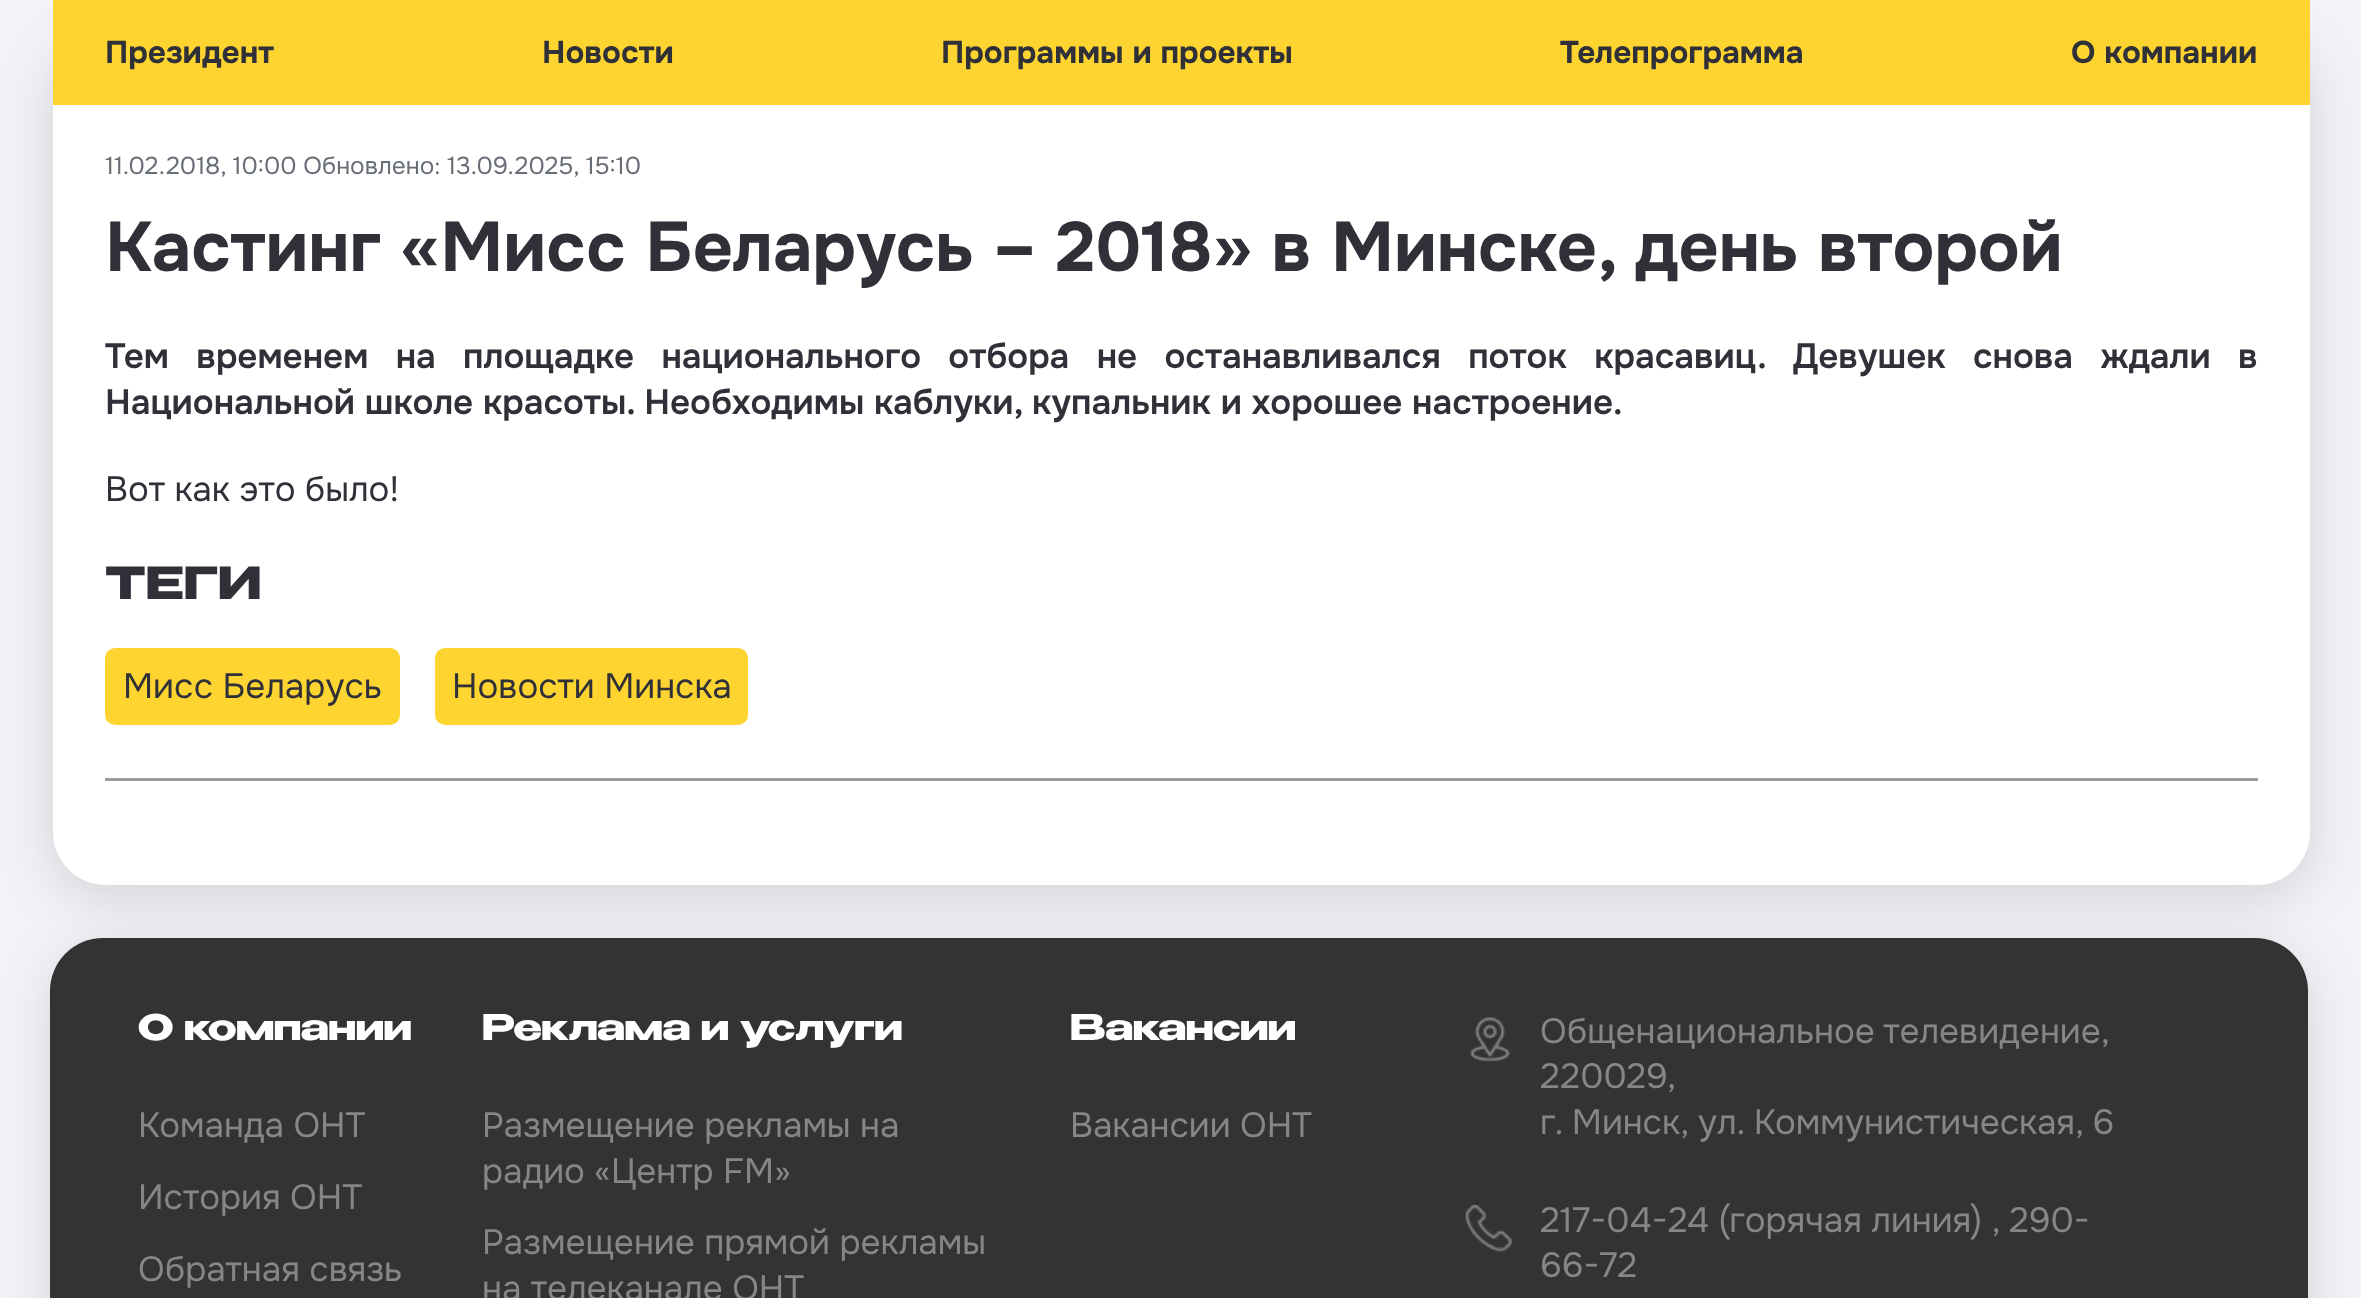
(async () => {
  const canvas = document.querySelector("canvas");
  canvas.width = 2361;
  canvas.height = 1298;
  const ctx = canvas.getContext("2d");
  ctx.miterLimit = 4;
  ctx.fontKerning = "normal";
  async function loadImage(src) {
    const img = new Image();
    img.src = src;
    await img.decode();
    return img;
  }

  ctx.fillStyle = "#f2f3f7";
  ctx.fillRect(0, 0, 2361, 1298);
  ctx.fillStyle = "rgba(0, 0, 0, 0.14)";
  ctx.filter = "blur(28px)";
  ctx.beginPath();
  ctx.roundRect(55, 48, 2253, 847, 50);
  ctx.fill();
  ctx.filter = "none";
  ctx.fillStyle = "#ffffff";
  ctx.beginPath();
  ctx.roundRect(53, 30, 2257, 855, [0, 0, 53, 53]);
  ctx.fill();
  ctx.fillStyle = "#fed530";
  ctx.fillRect(53, 0, 2257, 105);
  ctx.fillStyle = "#9a9a9d";
  ctx.fillRect(105, 778, 2153, 3);
  ctx.fillStyle = "#fed530";
  ctx.beginPath();
  ctx.roundRect(105, 648, 295, 77, 10);
  ctx.fill();
  ctx.beginPath();
  ctx.roundRect(435, 648, 313, 77, 10);
  ctx.fill();
  ctx.fillStyle = "rgba(0, 0, 0, 0.14)";
  ctx.filter = "blur(28px)";
  ctx.beginPath();
  ctx.roundRect(55, 955, 2250, 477, 50);
  ctx.fill();
  ctx.filter = "none";
  ctx.fillStyle = "#333333";
  ctx.beginPath();
  ctx.roundRect(50, 938, 2258, 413, 53);
  ctx.fill();
  ctx.drawImage(await loadImage("img/1.png"), 1469, 1017, 42, 45);
  ctx.drawImage(await loadImage("img/2.png"), 1465, 1205, 48, 47);
  ctx.font = "bold 31.5px Onest";
  ctx.fillStyle = "#303138";
  for (const [text, x, y] of [
    ["Президент", 105, 63],
    ["Новости", 542, 63],
    ["Программы и проекты", 941, 63],
    ["Телепрограмма", 1560, 63],
    ["О компании", 2071, 63],
  ]) {
    ctx.fillText(text, x, y);
  }
  ctx.font = "24.5px Onest";
  ctx.fillStyle = "#696f77";
  ctx.fillText("11.02.2018, 10:00 Обновлено: 13.09.2025, 15:10", 105, 174);
  ctx.font = "bold 70px Onest";
  ctx.fillStyle = "#303138";
  ctx.fillText("Кастинг «Мисс Беларусь – 2018» в Минске, день второй", 105, 271);
  ctx.wordSpacing = "17.6px";
  ctx.font = "600 35px Onest";
  ctx.fillText("Тем временем на площадке национального отбора не останавливался поток красавиц. Девушек снова ждали в", 105, 368);
  ctx.wordSpacing = "0px";
  ctx.fillText("Национальной школе красоты. Необходимы каблуки, купальник и хорошее настроение.", 105, 414);
  ctx.font = "35px Onest";
  ctx.fillText("Вот как это было!", 105, 501);
  ctx.font = "bold 44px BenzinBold";
  ctx.fillText("ТЕГИ", 105, 599);
  ctx.font = "35px Onest";
  ctx.fillText("Мисс Беларусь", 123, 698);
  ctx.fillText("Новости Минска", 452, 698);
  ctx.font = "bold 35px BenzinBold";
  ctx.fillStyle = "#ffffff";
  ctx.fillText("О компании", 138, 1040);
  ctx.font = "35px Onest";
  ctx.fillStyle = "#898585";
  for (const [text, x, y] of [
    ["Команда ОНТ", 138, 1137],
    ["История ОНТ", 138, 1209],
    ["Обратная связь", 138, 1281],
  ]) {
    ctx.fillText(text, x, y);
  }
  ctx.font = "bold 35px BenzinBold";
  ctx.fillStyle = "#ffffff";
  ctx.fillText("Реклама и услуги", 482, 1040);
  ctx.font = "35px Onest";
  ctx.fillStyle = "#898585";
  for (const [text, x, y] of [
    ["Размещение рекламы на", 482, 1137],
    ["радио «Центр FM»", 482, 1183],
    ["Размещение прямой рекламы", 482, 1254],
    ["на телеканале ОНТ", 482, 1300],
  ]) {
    ctx.fillText(text, x, y);
  }
  ctx.font = "bold 35px BenzinBold";
  ctx.fillStyle = "#ffffff";
  ctx.fillText("Вакансии", 1070, 1040);
  ctx.font = "35px Onest";
  ctx.fillStyle = "#898585";
  ctx.fillText("Вакансии ОНТ", 1070, 1137);
  ctx.wordSpacing = "-1px";
  ctx.fillText("Общенациональное телевидение,", 1540, 1043);
  ctx.wordSpacing = "0px";
  for (const [text, x, y] of [
    ["220029,", 1540, 1088],
    ["г. Минск, ул. Коммунистическая, 6", 1540, 1134],
    ["217-04-24 (горячая линия) , 290-", 1540, 1232],
    ["66-72", 1540, 1277],
  ]) {
    ctx.fillText(text, x, y);
  }
})();
